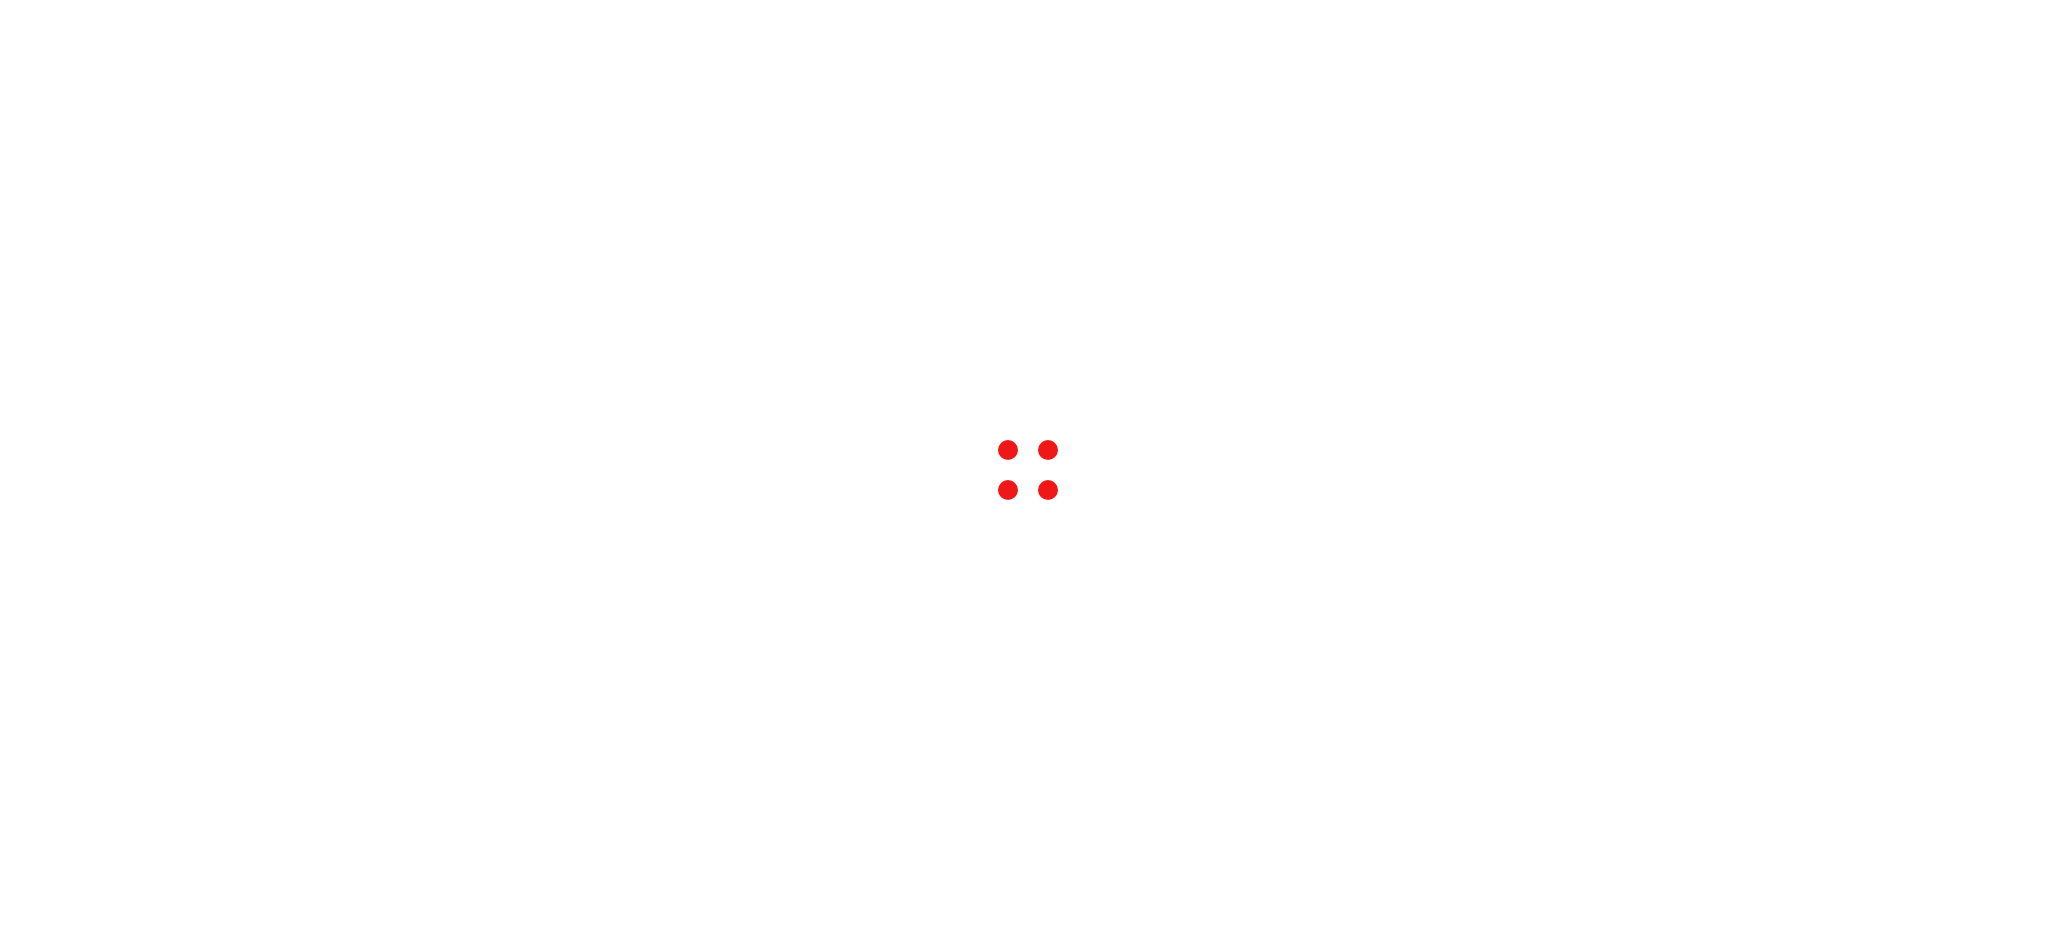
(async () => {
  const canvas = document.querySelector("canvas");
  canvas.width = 2055;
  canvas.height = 939;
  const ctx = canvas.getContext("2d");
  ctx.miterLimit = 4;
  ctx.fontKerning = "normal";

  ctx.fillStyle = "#ffffff";
  ctx.fillRect(0, 0, 2055, 939);
  ctx.fillStyle = "#f01719";
  ctx.beginPath();
  ctx.arc(1008, 450, 10, 0, Math.PI * 2);
  ctx.fill();
  ctx.beginPath();
  ctx.arc(1048, 450, 10, 0, Math.PI * 2);
  ctx.fill();
  ctx.beginPath();
  ctx.arc(1008, 490, 10, 0, Math.PI * 2);
  ctx.fill();
  ctx.beginPath();
  ctx.arc(1048, 490, 10, 0, Math.PI * 2);
  ctx.fill();
})();
